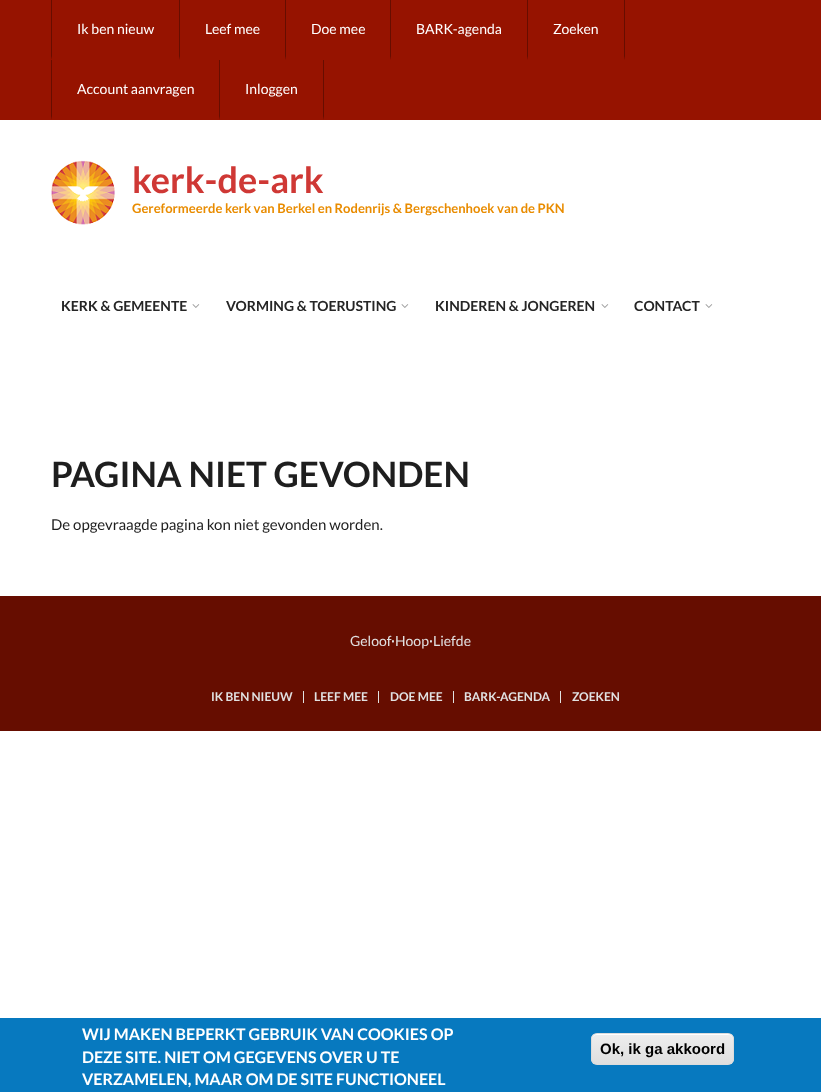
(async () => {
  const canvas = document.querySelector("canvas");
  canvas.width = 821;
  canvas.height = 1092;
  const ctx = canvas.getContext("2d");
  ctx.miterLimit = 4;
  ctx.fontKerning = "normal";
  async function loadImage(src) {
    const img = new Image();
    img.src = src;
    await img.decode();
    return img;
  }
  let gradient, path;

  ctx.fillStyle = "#ffffff";
  ctx.fillRect(0, 0, 821, 1092);
  ctx.fillStyle = "#961300";
  ctx.fillRect(0, 0, 821, 120);
  ctx.fillStyle = "#660d00";
  path = new Path2D("M51 60V0H52V56Z");
  ctx.fill(path);
  path = new Path2D("M179 60V0H180V56Z");
  ctx.fill(path);
  path = new Path2D("M285 60V0H286V56Z");
  ctx.fill(path);
  path = new Path2D("M390 60V0H391V56Z");
  ctx.fill(path);
  path = new Path2D("M625 0V60L624 56V0Z");
  ctx.fill(path);
  path = new Path2D("M527 60V0H528V56Z");
  ctx.fill(path);
  path = new Path2D("M51 120V60H52V116Z");
  ctx.fill(path);
  path = new Path2D("M324 60V120L323 116V60Z");
  ctx.fill(path);
  path = new Path2D("M219 120V60H220V116Z");
  ctx.fill(path);
  ctx.drawImage(await loadImage("img/1.png"), 51, 160, 64, 65);
  ctx.drawImage(await loadImage("img/2.png"), 192, 304, 8, 4);
  ctx.drawImage(await loadImage("img/2.png"), 401, 304, 8, 4);
  ctx.drawImage(await loadImage("img/2.png"), 601, 304, 8, 4);
  ctx.drawImage(await loadImage("img/2.png"), 705, 304, 8, 4);
  for (const [x, y, w, h, color] of [
    [0, 596, 821, 135, "#660d00"],
    [303, 691, 1, 12, "#e1e1e1"],
    [378, 691, 1, 12, "#e1e1e1"],
    [453, 691, 1, 12, "#e1e1e1"],
    [560, 691, 1, 12, "#e1e1e1"],
    [0, 1018, 821, 74, "#0779bf"],
  ]) {
    ctx.fillStyle = color;
    ctx.fillRect(x, y, w, h);
  }
  ctx.save();
  ctx.beginPath();
  ctx.roundRect(591, 1033, 143, 32, 6);
  ctx.clip();
  gradient = ctx.createLinearGradient(663, 1034, 663, 1064);
  gradient.addColorStop(0.05, "#ededed");
  gradient.addColorStop(1, "#dfdfdf");
  ctx.fillStyle = gradient;
  ctx.fillRect(591, 1034, 143, 30);
  ctx.restore();
  ctx.fillStyle = "#ffffff";
  path = new Path2D("M597 1035H728C731 1035 733 1037 733 1040V1039C733 1036 731 1034 728 1034H597C594 1034 592 1036 592 1039V1040C592 1037 594 1035 597 1035Z");
  ctx.fill(path);
  ctx.beginPath();
  ctx.roundRect(591.5, 1033.5, 142, 31, 5.5);
  ctx.strokeStyle = "#dcdcdc";
  ctx.stroke();
  ctx.font = "14px Lato";
  for (const [text, x, y] of [
    ["Ik ben nieuw", 77, 34],
    ["Leef mee", 205, 34],
    ["Doe mee", 311, 34],
    ["BARK-agenda", 416, 34],
    ["Zoeken", 553, 34],
    ["Account aanvragen", 77, 94],
    ["Inloggen", 245, 94],
  ]) {
    ctx.fillText(text, x, y);
  }
  ctx.font = "bold 36px Lato";
  ctx.fillStyle = "#cf3835";
  ctx.fillText("kerk-de-ark", 132, 193);
  ctx.font = "bold 13px Lato";
  ctx.fillStyle = "#e98c00";
  ctx.fillText("Gereformeerde kerk van Berkel en Rodenrijs & Bergschenhoek van de PKN", 132, 213);
  ctx.font = "bold 14px Lato";
  ctx.fillStyle = "#252525";
  for (const [text, x, y] of [
    ["KERK & GEMEENTE", 61, 311],
    ["VORMING & TOERUSTING", 226, 311],
    ["KINDEREN & JONGEREN", 435, 311],
    ["CONTACT", 634, 311],
  ]) {
    ctx.fillText(text, x, y);
  }
  ctx.font = "bold 35px Lato";
  ctx.fillStyle = "#1e1e1e";
  ctx.fillText("PAGINA NIET GEVONDEN", 51, 487);
  ctx.font = "15px Lato";
  ctx.fillText("De opgevraagde pagina kon niet gevonden worden.", 51, 530);
  ctx.font = "14px Lato";
  ctx.fillStyle = "#e1e1e1";
  ctx.fillText("Geloof", 350, 646);
  ctx.font = "bold 14px Liberation Sans";
  ctx.fillText("∙", 391, 646);
  ctx.font = "14px Lato";
  ctx.fillText("Hoop", 395, 646);
  ctx.font = "bold 14px Liberation Sans";
  ctx.fillText("∙", 429, 646);
  ctx.font = "14px Lato";
  ctx.fillText("Liefde", 433, 646);
  ctx.font = "bold 12px Lato";
  for (const [text, x, y] of [
    ["IK BEN NIEUW", 211, 701],
    ["LEEF MEE", 314, 701],
    ["DOE MEE", 390, 701],
    ["BARK-AGENDA", 464, 701],
    ["ZOEKEN", 572, 701],
  ]) {
    ctx.fillText(text, x, y);
  }
  ctx.font = "bold 16px Lato";
  ctx.fillStyle = "#ffffff";
  for (const [text, x, y] of [
    ["WIJ MAKEN BEPERKT GEBRUIK VAN COOKIES OP", 82, 1040],
    ["DEZE SITE. NIET OM GEGEVENS OVER U TE", 82, 1063],
    ["VERZAMELEN, MAAR OM DE SITE FUNCTIONEEL", 82, 1085],
  ]) {
    ctx.fillText(text, x, y);
  }
  ctx.font = "bold 15px Liberation Sans";
  ctx.fillStyle = "#000000";
  ctx.fillText("Ok, ik ga akkoord", 600, 1054);
})();
